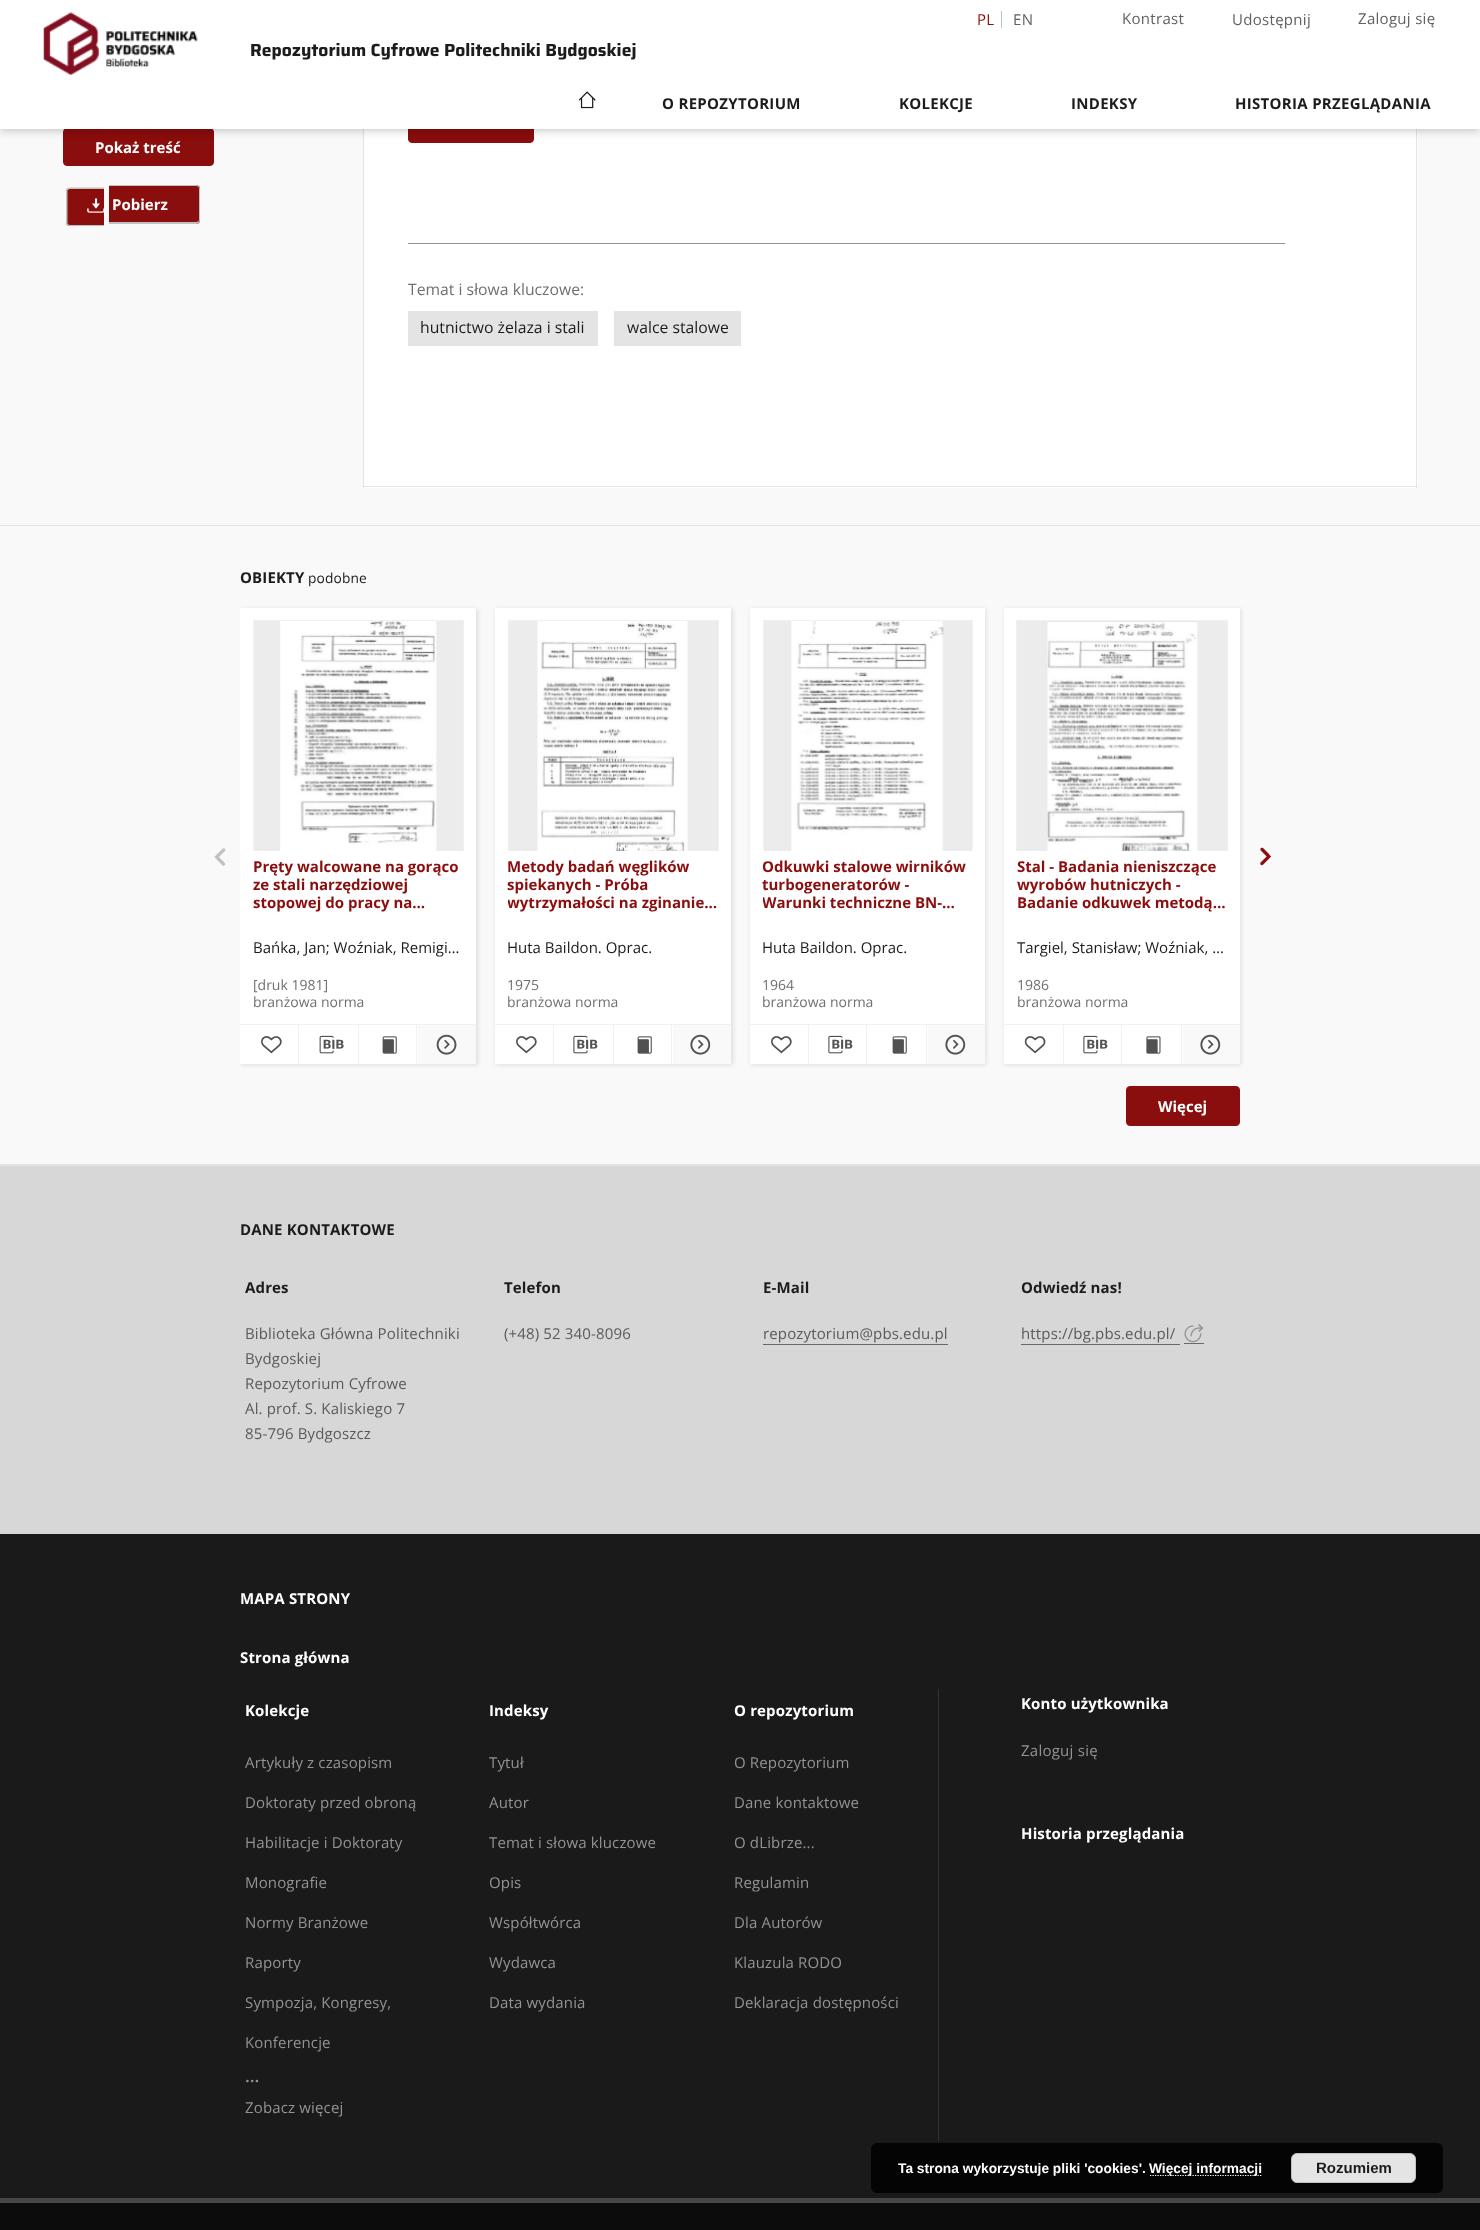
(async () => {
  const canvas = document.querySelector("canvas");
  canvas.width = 1480;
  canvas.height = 2230;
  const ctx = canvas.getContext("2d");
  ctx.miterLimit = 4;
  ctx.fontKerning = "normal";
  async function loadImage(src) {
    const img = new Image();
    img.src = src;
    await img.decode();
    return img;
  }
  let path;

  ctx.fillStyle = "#f9f9f9";
  ctx.fillRect(0, 0, 1480, 2230);
  ctx.fillStyle = "#8a0e0d";
  ctx.beginPath();
  ctx.roundRect(63.5, 128.5, 150, 37, 3.5);
  ctx.fill();
  ctx.strokeStyle = "#8a0e0d";
  ctx.stroke();
  for (const [x, y, w, h, color] of [
    [364, 129, 1054, 359, "#ffffff"],
    [1416, 129, 1, 359, "#e4e4e4"],
    [363, 486, 1055, 1, "#e4e4e4"],
    [363, 129, 1, 359, "#e4e4e4"],
  ]) {
    ctx.fillStyle = color;
    ctx.fillRect(x, y, w, h);
  }
  ctx.fillStyle = "#8a0e0d";
  ctx.beginPath();
  ctx.roundRect(408.5, 104.5, 125, 38, 3.5);
  ctx.fill();
  ctx.stroke();
  ctx.fillStyle = "rgba(0, 0, 0, 0.08)";
  ctx.filter = "blur(6px)";
  ctx.beginPath();
  ctx.rect(0, 1, 1480, 129);
  ctx.fill();
  ctx.filter = "none";
  ctx.fillStyle = "rgba(0, 0, 0, 0.06)";
  ctx.filter = "blur(3px)";
  ctx.beginPath();
  ctx.rect(0, 5, 1480, 129);
  ctx.fill();
  ctx.filter = "none";
  ctx.filter = "blur(2.5px)";
  ctx.beginPath();
  ctx.rect(1, 4, 1478, 126);
  ctx.fill();
  ctx.filter = "none";
  ctx.fillStyle = "#ffffff";
  ctx.fillRect(0, 0, 1480, 129);
  ctx.fillStyle = "#c1c1c1";
  ctx.fillRect(1001, 11, 1, 17);
  ctx.drawImage(await loadImage("img/1.png"), 43, 12, 155, 63);
  ctx.drawImage(await loadImage("img/2.png"), 578, 91, 18, 18);
  ctx.fillStyle = "#8a0e0d";
  ctx.beginPath();
  ctx.roundRect(66, 188, 38, 38, [4, 0, 0, 4]);
  ctx.fill();
  ctx.fillStyle = "#c1c1c1";
  path = new Path2D("M70 187.5H104V226H70C68 226 66 224.5 66 222.5V191C66 189 68 187.5 70 187.5ZM70 189H104V225H70C68.5 225 67.5 224 67.5 222.5V191C67.5 190 68.5 189 70 189Z");
  ctx.fill(path, "evenodd");
  ctx.fillStyle = "#8a0e0d";
  ctx.beginPath();
  ctx.roundRect(109, 185, 91, 39, [0, 4, 4, 0]);
  ctx.fill();
  ctx.fillStyle = "#c1c1c1";
  path = new Path2D("M109 185H196C198 185 200 187 200 189V220C200 222 198 224 196 224H109ZM109 186H196C198 186 199 187 199 189V220C199 221 198 222 196 222H109Z");
  ctx.fill(path, "evenodd");
  ctx.drawImage(await loadImage("img/3.png"), 87, 198, 18, 15);
  for (const [x, y, w, h, color] of [
    [408, 243, 877, 1, "#939393"],
    [408, 311, 190, 35, "#e4e4e4"],
    [614, 311, 127, 35, "#e4e4e4"],
    [0, 525, 1480, 1, "#e4e4e4"],
    [0, 1164, 1480, 2, "#e4e4e4"],
  ]) {
    ctx.fillStyle = color;
    ctx.fillRect(x, y, w, h);
  }
  ctx.drawImage(await loadImage("img/4.png"), 214, 848, 12, 18);
  ctx.drawImage(await loadImage("img/5.png"), 1260, 847, 12, 19);
  ctx.save();
  ctx.beginPath();
  ctx.rect(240, 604, 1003, 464);
  ctx.clip();
  ctx.fillStyle = "#dedede";
  ctx.filter = "blur(2px)";
  ctx.beginPath();
  ctx.rect(241, 609, 237, 456);
  ctx.fill();
  ctx.filter = "none";
  ctx.restore();
  ctx.fillStyle = "#ffffff";
  ctx.fillRect(240, 608, 236, 456);
  ctx.fillStyle = "#ececec";
  ctx.fillRect(254, 621, 209, 230);
  ctx.strokeStyle = "#f1f1f1";
  ctx.strokeRect(253.5, 620.5, 210, 243);
  ctx.drawImage(await loadImage("img/6.png"), 280, 621, 157, 230);
  for (const [x, y, w, h, color] of [
    [253, 851, 211, 13, "#ffffff"],
    [240, 1024, 236, 1, "#f1f1f1"],
    [298, 1025, 1, 39, "#f1f1f1"],
  ]) {
    ctx.fillStyle = color;
    ctx.fillRect(x, y, w, h);
  }
  ctx.drawImage(await loadImage("img/7.png"), 261, 1036, 21, 18);
  ctx.fillRect(358, 1025, 1, 39);
  ctx.drawImage(await loadImage("img/8.png"), 319, 1035, 25, 19);
  ctx.fillRect(416, 1025, 1, 39);
  ctx.drawImage(await loadImage("img/9.png"), 382, 1036, 15, 18);
  ctx.fillStyle = "#f9f9f9";
  ctx.fillRect(418, 1025, 58, 39);
  ctx.drawImage(await loadImage("img/10.png"), 436, 1034, 21, 21);
  ctx.fillStyle = "#dedede";
  ctx.filter = "blur(2px)";
  ctx.beginPath();
  ctx.rect(496, 609, 237, 456);
  ctx.fill();
  ctx.filter = "none";
  ctx.fillStyle = "#ffffff";
  ctx.fillRect(495, 608, 236, 456);
  ctx.fillStyle = "#ececec";
  ctx.fillRect(509, 621, 209, 230);
  ctx.strokeRect(508.5, 620.5, 210, 243);
  ctx.drawImage(await loadImage("img/11.png"), 537, 621, 151, 230);
  for (const [x, y, w, h, color] of [
    [508, 851, 211, 13, "#ffffff"],
    [495, 1024, 236, 1, "#f1f1f1"],
    [553, 1025, 1, 39, "#f1f1f1"],
  ]) {
    ctx.fillStyle = color;
    ctx.fillRect(x, y, w, h);
  }
  ctx.drawImage(await loadImage("img/7.png"), 516, 1036, 21, 18);
  ctx.fillRect(613, 1025, 1, 39);
  ctx.drawImage(await loadImage("img/12.png"), 573, 1035, 25, 19);
  ctx.fillRect(671, 1025, 1, 39);
  ctx.drawImage(await loadImage("img/9.png"), 637, 1036, 15, 18);
  ctx.fillStyle = "#f9f9f9";
  ctx.fillRect(673, 1025, 58, 39);
  ctx.drawImage(await loadImage("img/13.png"), 690, 1034, 21, 21);
  ctx.fillStyle = "#dedede";
  ctx.filter = "blur(2px)";
  ctx.beginPath();
  ctx.rect(751, 609, 235, 456);
  ctx.fill();
  ctx.filter = "none";
  ctx.fillStyle = "#ffffff";
  ctx.fillRect(750, 608, 235, 456);
  ctx.fillStyle = "#ececec";
  ctx.fillRect(764, 621, 208, 230);
  ctx.strokeRect(763.5, 620.5, 209, 243);
  ctx.drawImage(await loadImage("img/14.png"), 791, 621, 153, 230);
  for (const [x, y, w, h, color] of [
    [763, 851, 210, 13, "#ffffff"],
    [750, 1024, 235, 1, "#f1f1f1"],
    [808, 1025, 1, 39, "#f1f1f1"],
  ]) {
    ctx.fillStyle = color;
    ctx.fillRect(x, y, w, h);
  }
  ctx.drawImage(await loadImage("img/7.png"), 771, 1036, 21, 18);
  ctx.fillRect(866, 1025, 1, 39);
  ctx.drawImage(await loadImage("img/12.png"), 828, 1035, 25, 19);
  ctx.fillRect(926, 1025, 1, 39);
  ctx.drawImage(await loadImage("img/9.png"), 892, 1036, 15, 18);
  ctx.fillStyle = "#f9f9f9";
  ctx.fillRect(928, 1025, 57, 39);
  ctx.drawImage(await loadImage("img/13.png"), 945, 1034, 21, 21);
  ctx.fillStyle = "#dedede";
  ctx.filter = "blur(2px)";
  ctx.beginPath();
  ctx.rect(1005, 609, 236, 456);
  ctx.fill();
  ctx.filter = "none";
  ctx.fillStyle = "#ffffff";
  ctx.fillRect(1004, 608, 236, 456);
  ctx.fillStyle = "#ececec";
  ctx.fillRect(1017, 621, 210, 230);
  ctx.strokeRect(1016.5, 620.5, 211, 243);
  ctx.drawImage(await loadImage("img/15.png"), 1047, 621, 151, 230);
  for (const [x, y, w, h, color] of [
    [1016, 851, 212, 13, "#ffffff"],
    [1004, 1024, 236, 1, "#f1f1f1"],
    [1063, 1025, 1, 39, "#f1f1f1"],
  ]) {
    ctx.fillStyle = color;
    ctx.fillRect(x, y, w, h);
  }
  ctx.drawImage(await loadImage("img/16.png"), 1024, 1036, 22, 18);
  ctx.fillRect(1121, 1025, 1, 39);
  ctx.drawImage(await loadImage("img/12.png"), 1083, 1035, 25, 19);
  ctx.fillRect(1181, 1025, 1, 39);
  ctx.drawImage(await loadImage("img/17.png"), 1146, 1036, 15, 18);
  ctx.fillStyle = "#f9f9f9";
  ctx.fillRect(1183, 1025, 57, 39);
  ctx.drawImage(await loadImage("img/13.png"), 1200, 1034, 21, 21);
  ctx.fillStyle = "#8a0e0d";
  ctx.beginPath();
  ctx.roundRect(1126.5, 1086.5, 113, 39, 3.5);
  ctx.fill();
  ctx.strokeStyle = "#8a0e0d";
  ctx.stroke();
  for (const [x, y, w, h, color] of [
    [0, 1166, 1480, 368, "#d7d7d7"],
    [763, 1344, 185, 1, "#696969"],
    [1021, 1344, 159, 1, "#696969"],
    [1184, 1343, 20, 1, "#696969"],
  ]) {
    ctx.fillStyle = color;
    ctx.fillRect(x, y, w, h);
  }
  ctx.drawImage(await loadImage("img/18.png"), 1184, 1324, 20, 19);
  ctx.fillStyle = "#1b1a1a";
  ctx.fillRect(0, 1534, 1480, 664);
  ctx.fillStyle = "#333333";
  ctx.fillRect(938, 1689, 1, 452);
  ctx.fillStyle = "#040404";
  ctx.beginPath();
  ctx.roundRect(871, 2143, 572, 50, 6);
  ctx.fill();
  path = new Path2D("M1150 2175.5H1262.5");
  ctx.strokeStyle = "#ffffff";
  ctx.lineWidth = 1.2;
  ctx.setLineDash([1.25, 1.25]);
  ctx.stroke(path);
  ctx.fillStyle = "#e4e4e4";
  ctx.beginPath();
  ctx.roundRect(1291.5, 2153.5, 124, 29, 5.5);
  ctx.fill();
  ctx.strokeStyle = "#c1c1c1";
  ctx.lineWidth = 1;
  ctx.setLineDash([]);
  ctx.stroke();
  ctx.fillStyle = "#0c0c0c";
  ctx.fillRect(0, 2203, 1480, 27);
  ctx.fillStyle = "#474747";
  ctx.fillRect(0, 2198, 1480, 5);
  ctx.letterSpacing = "0.3px";
  ctx.font = "15px Open Sans";
  ctx.fillStyle = "#8a0e0d";
  ctx.fillText("PL", 977, 25);
  ctx.fillStyle = "#606060";
  for (const [text, x, y] of [
    ["EN", 1013, 25],
    ["Kontrast", 1122, 24],
    ["Udostępnij", 1232, 25],
    ["Zaloguj się", 1358, 24],
  ]) {
    ctx.fillText(text, x, y);
  }
  ctx.letterSpacing = "0px";
  ctx.font = "bold 17.5px Saira";
  ctx.fillStyle = "#1c1c1c";
  ctx.fillText("Repozytorium Cyfrowe Politechniki Bydgoskiej", 250, 56);
  ctx.letterSpacing = "0.3px";
  ctx.font = "bold 15px Open Sans";
  for (const [text, x, y] of [
    ["O REPOZYTORIUM", 662, 109],
    ["KOLEKCJE", 899, 109],
    ["INDEKSY", 1071, 109],
    ["HISTORIA PRZEGLĄDANIA", 1235, 109],
  ]) {
    ctx.fillText(text, x, y);
  }
  ctx.letterSpacing = "0px";
  ctx.fillStyle = "#ffffff";
  ctx.fillText("Pokaż treść", 95, 153);
  ctx.fillText("Pobierz", 112, 210);
  ctx.font = "15.75px Open Sans";
  ctx.fillStyle = "#707070";
  ctx.fillText("Temat i słowa kluczowe:", 408, 295);
  ctx.fillStyle = "#1c1c1c";
  ctx.fillText("hutnictwo żelaza i stali", 420, 333);
  ctx.fillText("walce stalowe", 627, 333);
  ctx.letterSpacing = "0.15px";
  ctx.font = "bold 15px Open Sans";
  ctx.fillText("OBIEKTY", 240, 583);
  ctx.font = "13.75px Open Sans";
  ctx.fillText("podobne", 308, 583);
  ctx.letterSpacing = "0px";
  ctx.font = "bold 15px Open Sans";
  ctx.fillStyle = "#8a0e0d";
  for (const [text, x, y] of [
    ["Pręty walcowane na gorąco", 253, 872],
    ["ze stali narzędziowej", 253, 890],
    ["stopowej do pracy na…", 253, 908],
  ]) {
    ctx.fillText(text, x, y);
  }
  ctx.font = "15px Open Sans";
  ctx.fillStyle = "#1c1c1c";
  ctx.fillText("Bańka, Jan; Woźniak, Remigi…", 253, 953);
  ctx.font = "14px Open Sans";
  ctx.fillStyle = "#707070";
  ctx.fillText("[druk 1981]", 253, 990);
  ctx.fillText("branżowa norma", 253, 1007);
  ctx.font = "bold 15px Open Sans";
  ctx.fillStyle = "#8a0e0d";
  ctx.fillText("Metody badań węglików", 507, 872);
  ctx.fillText("spiekanych - Próba", 507, 890);
  ctx.save();
  ctx.beginPath();
  ctx.rect(508, 851, 211, 62);
  ctx.clip();
  ctx.fillText("wytrzymałości na zginanie…", 507, 908);
  ctx.restore();
  ctx.font = "15px Open Sans";
  ctx.fillStyle = "#1c1c1c";
  ctx.fillText("Huta Baildon. Oprac.", 507, 953);
  ctx.font = "14px Open Sans";
  ctx.fillStyle = "#707070";
  ctx.fillText("1975", 507, 990);
  ctx.fillText("branżowa norma", 507, 1007);
  ctx.save();
  ctx.beginPath();
  ctx.rect(763, 851, 210, 62);
  ctx.clip();
  ctx.font = "bold 15px Open Sans";
  ctx.fillStyle = "#8a0e0d";
  ctx.fillText("Odkuwki stalowe wirników", 762, 872);
  ctx.restore();
  ctx.font = "bold 15px Open Sans";
  ctx.fillStyle = "#8a0e0d";
  ctx.fillText("turbogeneratorów -", 762, 890);
  ctx.save();
  ctx.beginPath();
  ctx.rect(763, 851, 210, 62);
  ctx.clip();
  ctx.fillText("Warunki techniczne BN-…", 762, 908);
  ctx.restore();
  ctx.font = "15px Open Sans";
  ctx.fillStyle = "#1c1c1c";
  ctx.fillText("Huta Baildon. Oprac.", 762, 953);
  ctx.font = "14px Open Sans";
  ctx.fillStyle = "#707070";
  ctx.fillText("1964", 762, 990);
  ctx.fillText("branżowa norma", 762, 1007);
  ctx.font = "bold 15px Open Sans";
  ctx.fillStyle = "#8a0e0d";
  for (const [text, x, y] of [
    ["Stal - Badania nieniszczące", 1017, 872],
    ["wyrobów hutniczych -", 1017, 890],
    ["Badanie odkuwek metodą…", 1017, 908],
  ]) {
    ctx.fillText(text, x, y);
  }
  ctx.font = "15px Open Sans";
  ctx.fillStyle = "#1c1c1c";
  ctx.fillText("Targiel, Stanisław; Woźniak, …", 1017, 953);
  ctx.font = "14px Open Sans";
  ctx.fillStyle = "#707070";
  ctx.fillText("1986", 1017, 990);
  ctx.fillText("branżowa norma", 1017, 1007);
  ctx.font = "bold 15px Open Sans";
  ctx.fillStyle = "#ffffff";
  ctx.fillText("Więcej", 1158, 1112);
  ctx.letterSpacing = "0.15px";
  ctx.fillStyle = "#1c1c1c";
  ctx.fillText("DANE KONTAKTOWE", 240, 1235);
  ctx.fillText("Adres", 245, 1293);
  ctx.font = "15px Open Sans";
  ctx.fillStyle = "#5a5a5a";
  for (const [text, x, y] of [
    ["Biblioteka Główna Politechniki", 245, 1339],
    ["Bydgoskiej", 245, 1364],
    ["Repozytorium Cyfrowe", 245, 1389],
    ["Al. prof. S. Kaliskiego 7", 245, 1414],
    ["85-796 Bydgoszcz", 245, 1439],
  ]) {
    ctx.fillText(text, x, y);
  }
  ctx.font = "bold 15px Open Sans";
  ctx.fillStyle = "#1c1c1c";
  ctx.fillText("Telefon", 504, 1293);
  ctx.font = "15px Open Sans";
  ctx.fillStyle = "#5a5a5a";
  ctx.fillText("(+48) 52 340-8096", 504, 1339);
  ctx.font = "bold 15px Open Sans";
  ctx.fillStyle = "#1c1c1c";
  ctx.fillText("E-Mail", 763, 1293);
  ctx.font = "15px Open Sans";
  ctx.fillStyle = "#5a5a5a";
  ctx.fillText("repozytorium@pbs.edu.pl", 763, 1339);
  ctx.font = "bold 15px Open Sans";
  ctx.fillStyle = "#1c1c1c";
  ctx.fillText("Odwiedź nas!", 1021, 1293);
  ctx.font = "15px Open Sans";
  ctx.fillStyle = "#5a5a5a";
  ctx.fillText("https://bg.pbs.edu.pl/", 1021, 1339);
  ctx.font = "bold 15px Open Sans";
  ctx.fillStyle = "#ffffff";
  for (const [text, x, y] of [
    ["MAPA STRONY", 240, 1604],
    ["Strona główna", 240, 1663],
    ["Kolekcje", 245, 1716],
  ]) {
    ctx.fillText(text, x, y);
  }
  ctx.font = "15px Open Sans";
  ctx.fillStyle = "#939393";
  for (const [text, x, y] of [
    ["Artykuły z czasopism", 245, 1768],
    ["Doktoraty przed obroną", 245, 1808],
    ["Habilitacje i Doktoraty", 245, 1848],
    ["Monografie", 245, 1888],
    ["Normy Branżowe", 245, 1928],
    ["Raporty", 245, 1968],
    ["Sympozja, Kongresy,", 245, 2008],
    ["Konferencje", 245, 2048],
  ]) {
    ctx.fillText(text, x, y);
  }
  ctx.letterSpacing = "0px";
  ctx.font = "600 17.5px Open Sans";
  ctx.fillText("...", 245, 2082);
  ctx.letterSpacing = "0.15px";
  ctx.font = "15px Open Sans";
  ctx.fillText("Zobacz więcej", 245, 2113);
  ctx.font = "bold 15px Open Sans";
  ctx.fillStyle = "#ffffff";
  ctx.fillText("Indeksy", 489, 1716);
  ctx.font = "15px Open Sans";
  ctx.fillStyle = "#939393";
  for (const [text, x, y] of [
    ["Tytuł", 489, 1768],
    ["Autor", 489, 1808],
    ["Temat i słowa kluczowe", 489, 1848],
    ["Opis", 489, 1888],
    ["Współtwórca", 489, 1928],
    ["Wydawca", 489, 1968],
    ["Data wydania", 489, 2008],
  ]) {
    ctx.fillText(text, x, y);
  }
  ctx.font = "bold 15px Open Sans";
  ctx.fillStyle = "#ffffff";
  ctx.fillText("O repozytorium", 734, 1716);
  ctx.font = "15px Open Sans";
  ctx.fillStyle = "#939393";
  for (const [text, x, y] of [
    ["O Repozytorium", 734, 1768],
    ["Dane kontaktowe", 734, 1808],
    ["O dLibrze...", 734, 1848],
    ["Regulamin", 734, 1888],
    ["Dla Autorów", 734, 1928],
    ["Klauzula RODO", 734, 1968],
    ["Deklaracja dostępności", 734, 2008],
  ]) {
    ctx.fillText(text, x, y);
  }
  ctx.font = "bold 15px Open Sans";
  ctx.fillStyle = "#ffffff";
  ctx.fillText("Konto użytkownika", 1021, 1709);
  ctx.letterSpacing = "0.25px";
  ctx.font = "15px Open Sans";
  ctx.fillStyle = "#939393";
  ctx.fillText("Zaloguj się", 1021, 1756);
  ctx.letterSpacing = "0.15px";
  ctx.font = "bold 15px Open Sans";
  ctx.fillStyle = "#ffffff";
  ctx.fillText("Historia przeglądania", 1021, 1839);
  ctx.letterSpacing = "0px";
  ctx.font = "bold 13.75px Liberation Sans";
  ctx.fillText("Ta strona wykorzystuje pliki 'cookies'.", 898, 2173);
  ctx.fillText("Więcej informacji", 1149, 2173);
  ctx.font = "bold 15px Liberation Sans";
  ctx.fillStyle = "#1c1c1c";
  ctx.fillText("Rozumiem", 1316, 2173);
})();
